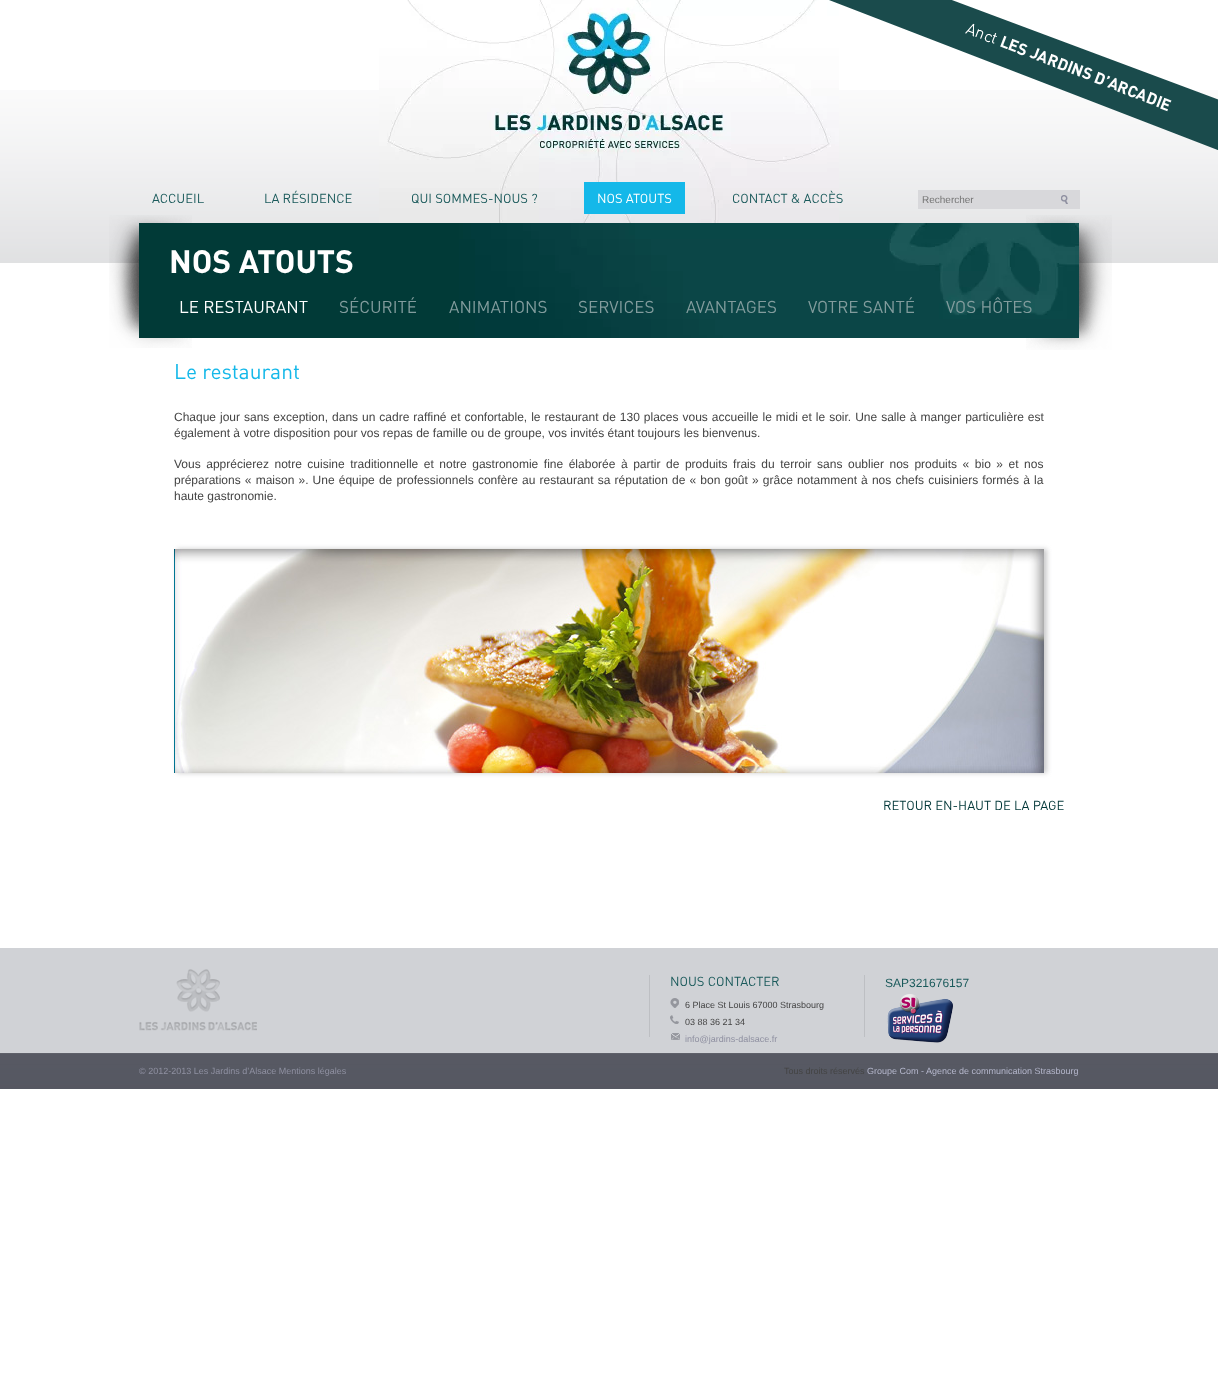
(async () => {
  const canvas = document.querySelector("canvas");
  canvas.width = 1218;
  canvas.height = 1394;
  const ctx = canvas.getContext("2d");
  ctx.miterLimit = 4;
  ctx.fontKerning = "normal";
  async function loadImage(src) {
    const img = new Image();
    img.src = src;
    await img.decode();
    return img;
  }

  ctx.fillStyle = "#ffffff";
  ctx.fillRect(0, 0, 1218, 1394);
  ctx.drawImage(await loadImage("img/2.png"), 0, 90, 1218, 173);
  ctx.drawImage(await loadImage("img/3.png"), 379, 0, 460, 223);
  ctx.drawImage(await loadImage("img/1.png"), 829, 0, 389, 150);
  ctx.fillStyle = "#14b8e9";
  ctx.fillRect(584, 182, 101, 32);
  ctx.fillStyle = "#d8d8db";
  ctx.fillRect(918, 190, 162, 19);
  ctx.drawImage(await loadImage("img/4.png"), 1061, 195, 7, 9);
  ctx.drawImage(await loadImage("img/5.png"), 109, 215, 83, 133);
  ctx.drawImage(await loadImage("img/6.png"), 1026, 215, 86, 135);
  ctx.drawImage(await loadImage("img/7.png"), 139, 223, 940, 115);
  ctx.fillStyle = "#cbcbcc";
  ctx.filter = "blur(2.5px)";
  ctx.beginPath();
  ctx.rect(177, 549, 870, 224);
  ctx.fill();
  ctx.filter = "none";
  ctx.drawImage(await loadImage("img/8.png"), 174, 549, 870, 224);
  ctx.drawImage(await loadImage("img/9.png"), 0, 948, 1218, 141);
  ctx.drawImage(await loadImage("img/10.png"), 139, 969, 118, 62);
  ctx.fillStyle = "#bdbfc3";
  ctx.fillRect(649, 975, 1, 62);
  ctx.drawImage(await loadImage("img/11.png"), 670, 998, 9, 10);
  ctx.drawImage(await loadImage("img/12.png"), 670, 1015, 9, 9);
  ctx.drawImage(await loadImage("img/13.png"), 671, 1033, 9, 7);
  ctx.fillRect(864, 975, 1, 62);
  ctx.drawImage(await loadImage("img/14.png"), 887, 994, 66, 49);
  ctx.font = "13px DIN";
  ctx.fillStyle = "#1a5a5b";
  for (const [text, x, y] of [
    ["ACCUEIL", 152, 203],
    ["LA RÉSIDENCE", 264, 203],
    ["QUI SOMMES-NOUS ?", 411, 203],
  ]) {
    ctx.fillText(text, x, y);
  }
  ctx.fillStyle = "#ffffff";
  ctx.fillText("NOS ATOUTS", 597, 203);
  ctx.fillStyle = "#1a5a5b";
  ctx.fillText("CONTACT & ACCÈS", 732, 203);
  ctx.font = "10px Liberation Sans";
  ctx.fillStyle = "#757575";
  ctx.fillText("Rechercher", 922, 203);
  ctx.font = "bold 32px DIN";
  ctx.fillStyle = "#ffffff";
  ctx.fillText("NOS ATOUTS", 169, 273);
  ctx.font = "17px DIN";
  ctx.fillText("LE RESTAURANT", 179, 313);
  ctx.fillStyle = "#829c9d";
  for (const [text, x, y] of [
    ["SÉCURITÉ", 339, 313],
    ["ANIMATIONS", 449, 313],
    ["SERVICES", 578, 313],
    ["AVANTAGES", 686, 313],
    ["VOTRE SANTÉ", 808, 313],
    ["VOS HÔTES", 946, 313],
  ]) {
    ctx.fillText(text, x, y);
  }
  ctx.font = "21px DIN";
  ctx.fillStyle = "#14b8e9";
  ctx.fillText("Le restaurant", 174, 379);
  ctx.wordSpacing = "0.65px";
  ctx.font = "12px Liberation Sans";
  ctx.fillStyle = "#444444";
  ctx.fillText("Chaque jour sans exception, dans un cadre raffiné et confortable, le restaurant de 130 places vous accueille le midi et le soir. Une salle à manger particulière est", 174, 421);
  ctx.wordSpacing = "0px";
  ctx.fillText("également à votre disposition pour vos repas de famille ou de groupe, vos invités étant toujours les bienvenus.", 174, 437);
  ctx.wordSpacing = "2.2px";
  ctx.fillText("Vous apprécierez notre cuisine traditionnelle et notre gastronomie fine élaborée à partir de produits frais du terroir sans oublier nos produits « bio » et nos", 174, 468);
  ctx.wordSpacing = "0.8px";
  ctx.fillText("préparations « maison ». Une équipe de professionnels confère au restaurant sa réputation de « bon goût » grâce notamment à nos chefs cuisiniers formés à la", 174, 484);
  ctx.wordSpacing = "0px";
  ctx.fillText("haute gastronomie.", 174, 500);
  ctx.font = "13px DIN";
  ctx.fillStyle = "#003738";
  ctx.fillText("RETOUR EN-HAUT DE LA PAGE", 883, 810);
  ctx.fillStyle = "#1a5a5b";
  ctx.fillText("NOUS CONTACTER", 670, 986);
  ctx.font = "9px Liberation Sans";
  ctx.fillStyle = "#444444";
  ctx.fillText("6 Place St Louis 67000 Strasbourg", 685, 1008);
  ctx.fillText("03 88 36 21 34", 685, 1025);
  ctx.fillStyle = "#8f90a1";
  ctx.fillText("info@jardins-dalsace.fr", 685, 1042);
  ctx.font = "12px Liberation Sans";
  ctx.fillStyle = "#1a5a5b";
  ctx.fillText("SAP321676157", 885, 987);
  ctx.font = "9px Liberation Sans";
  ctx.fillStyle = "#8f90a1";
  ctx.fillText("© 2012-2013 Les Jardins d’Alsace Mentions légales", 139, 1074);
  ctx.fillStyle = "#444444";
  ctx.fillText("Tous droits réservés", 784, 1074);
  ctx.fillStyle = "#b4b6cb";
  ctx.fillText("Groupe Com - Agence de communication Strasbourg", 867, 1074);
})();
